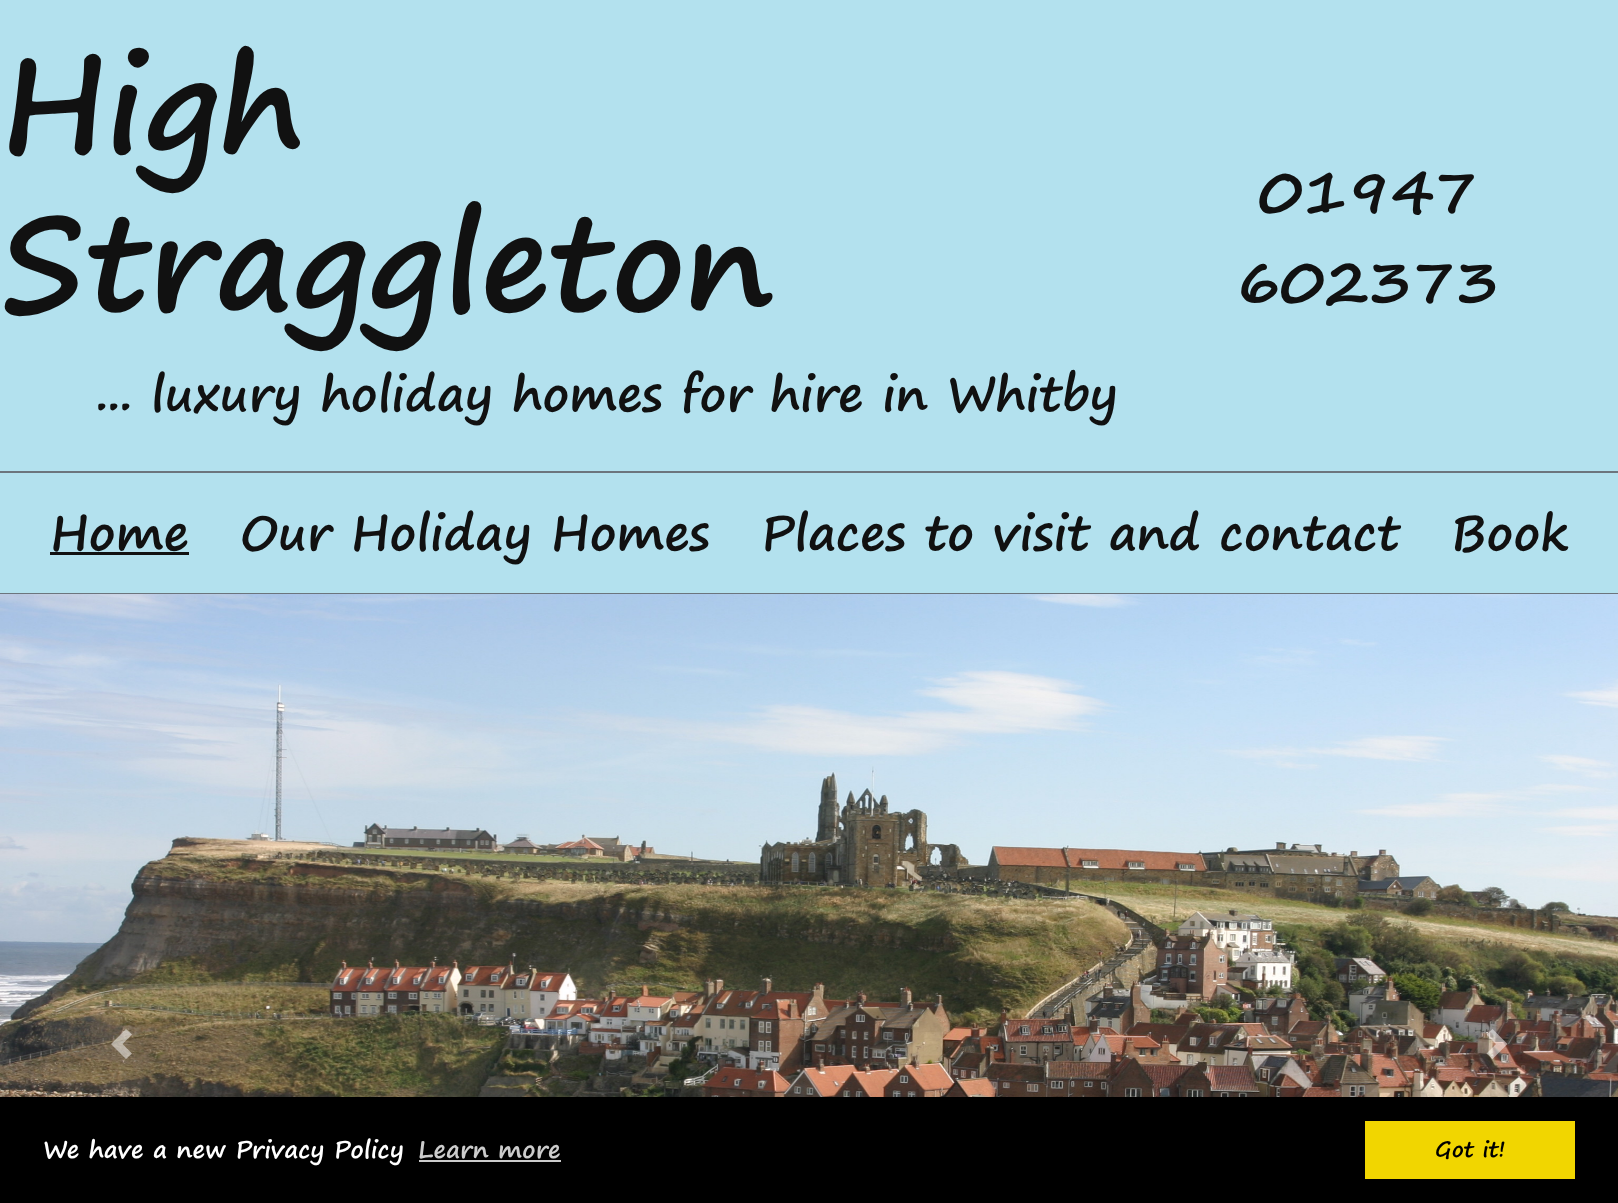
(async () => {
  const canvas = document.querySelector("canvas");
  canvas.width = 1618;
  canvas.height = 1203;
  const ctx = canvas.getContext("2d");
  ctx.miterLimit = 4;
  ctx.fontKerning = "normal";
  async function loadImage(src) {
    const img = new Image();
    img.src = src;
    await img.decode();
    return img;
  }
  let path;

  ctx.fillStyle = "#b3e1ee";
  ctx.fillRect(0, 0, 1618, 1203);
  for (const [x, y, w, h, color] of [
    [0, 471, 1618, 2, "#6c757d"],
    [0, 593, 1618, 1, "#6c757d"],
    [50, 552, 139, 3, "#111111"],
  ]) {
    ctx.fillStyle = color;
    ctx.fillRect(x, y, w, h);
  }
  ctx.drawImage(await loadImage("img/1.png"), 0, 594, 1618, 503);
  ctx.fillStyle = "rgba(255, 255, 255, 0.5)";
  path = new Path2D("M126 1029L111 1044L126 1059L132 1053.5L122.5 1044L132 1034.5Z");
  ctx.fill(path);
  path = new Path2D("M1492.5 1029L1486.5 1034.5L1496 1044L1486.5 1053.5L1492.5 1059L1507.5 1044Z");
  ctx.fill(path);
  for (const [x, y, w, h, color] of [
    [0, 1097, 1618, 106, "#000000"],
    [419, 1160, 142, 2, "#cccccc"],
    [1365, 1121, 210, 58, "#f1d600"],
  ]) {
    ctx.fillStyle = color;
    ctx.fillRect(x, y, w, h);
  }
  ctx.font = "bold 132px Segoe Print";
  ctx.fillStyle = "#111111";
  ctx.fillText("High", 0, 152);
  ctx.fillText("Straggleton", 0, 310);
  ctx.font = "bold 48px Segoe Print";
  ctx.fillText("... luxury holiday homes for hire in Whitby", 96, 411);
  ctx.font = "bold 60px Segoe Print";
  ctx.fillText("01947", 1259, 213);
  ctx.fillText("602373", 1237, 303);
  ctx.font = "bold 48px Segoe Print";
  for (const [text, x, y] of [
    ["Home", 50, 550],
    ["Our Holiday Homes", 240, 550],
    ["Places to visit and contact", 761, 550],
    ["Book", 1451, 550],
  ]) {
    ctx.fillText(text, x, y);
  }
  ctx.font = "bold 24px Segoe Print";
  ctx.fillStyle = "#ffffff";
  ctx.fillText("We have a new Privacy Policy", 43, 1158);
  ctx.fillStyle = "#cccccc";
  ctx.fillText("Learn more", 418, 1158);
  ctx.font = "bold 21.5px Segoe Print";
  ctx.fillStyle = "#000000";
  ctx.fillText("Got it!", 1435, 1157);
})();
